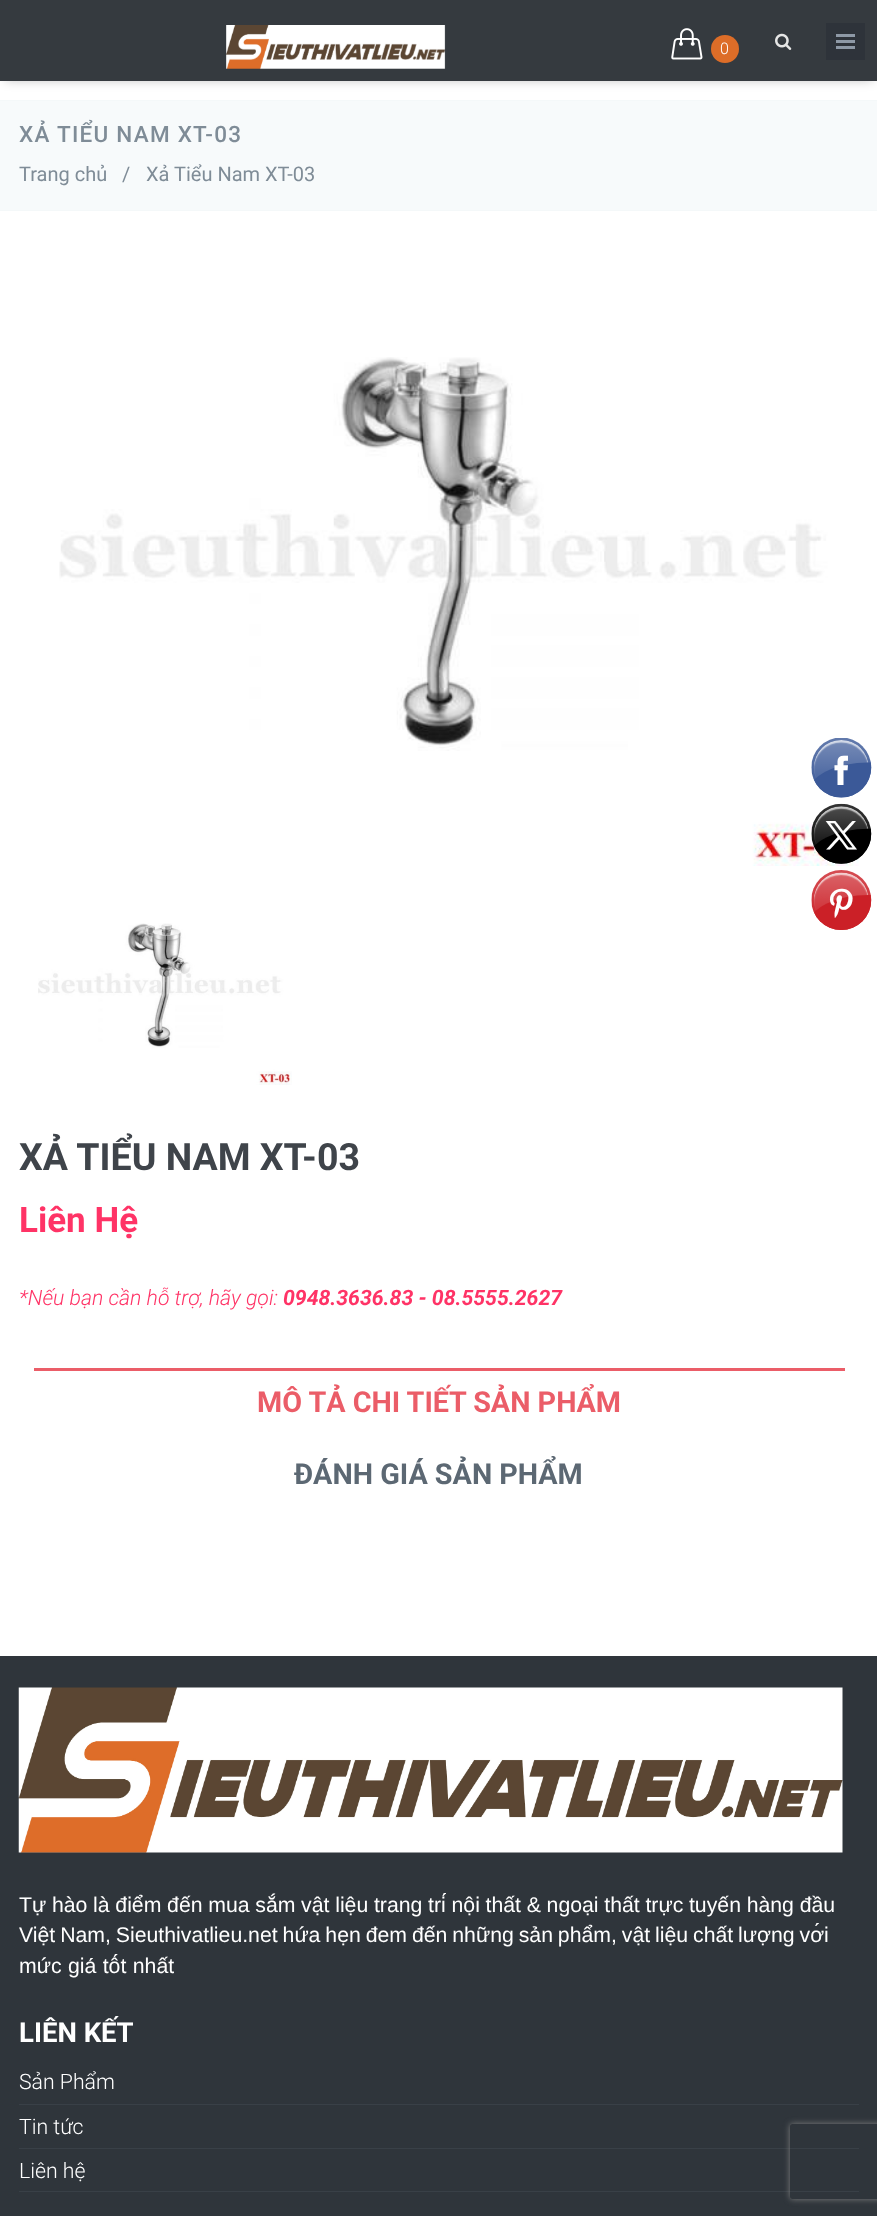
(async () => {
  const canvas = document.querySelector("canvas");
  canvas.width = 877;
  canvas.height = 2216;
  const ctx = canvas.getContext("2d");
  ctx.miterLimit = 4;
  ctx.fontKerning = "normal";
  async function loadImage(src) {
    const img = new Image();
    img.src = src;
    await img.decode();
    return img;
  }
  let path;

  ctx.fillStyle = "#ffffff";
  ctx.fillRect(0, 0, 877, 2216);
  ctx.fillStyle = "rgba(0, 0, 0, 0.25)";
  ctx.filter = "blur(5.5px)";
  ctx.beginPath();
  ctx.rect(5, 9, 868, 71);
  ctx.fill();
  ctx.filter = "none";
  ctx.fillStyle = "#353a3f";
  ctx.fillRect(0, 0, 877, 81);
  ctx.drawImage(await loadImage("img/1.png"), 226, 25, 220, 44);
  ctx.drawImage(await loadImage("img/2.png"), 671, 28, 32, 32);
  ctx.fillStyle = "#dd6d28";
  ctx.beginPath();
  ctx.arc(725, 49, 14, 0, Math.PI * 2);
  ctx.fill();
  ctx.drawImage(await loadImage("img/3.png"), 775, 33, 17, 17);
  for (const [x, y, w, h, color] of [
    [826, 23, 39, 37, "#2e333a"],
    [836, 34, 19, 3, "#8e99a6"],
    [836, 40, 19, 3, "#8e99a6"],
    [836, 46, 19, 3, "#8e99a6"],
    [0, 101, 877, 109, "#f7fafb"],
    [0, 100, 877, 1, "#f4f8f9"],
    [0, 210, 877, 1, "#f4f8f9"],
  ]) {
    ctx.fillStyle = color;
    ctx.fillRect(x, y, w, h);
  }
  ctx.drawImage(await loadImage("img/4.png"), 59, 357, 800, 509);
  ctx.drawImage(await loadImage("img/5.png"), 38, 923, 254, 162);
  ctx.fillStyle = "#eb5d68";
  ctx.fillRect(34, 1368, 811, 3);
  ctx.fillStyle = "#2f353b";
  ctx.fillRect(0, 1656, 877, 560);
  ctx.drawImage(await loadImage("img/6.png"), 18, 1687, 825, 166);
  for (const [x, y, w, h, color] of [
    [19, 2104, 840, 1, "#394047"],
    [19, 2148, 840, 1, "#394047"],
    [19, 2191, 840, 1, "#394047"],
  ]) {
    ctx.fillStyle = color;
    ctx.fillRect(x, y, w, h);
  }
  ctx.drawImage(await loadImage("img/7.png"), 811, 738, 61, 192);
  ctx.save();
  path = new Path2D("M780 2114H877V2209H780ZM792.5 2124H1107.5C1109 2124 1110 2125 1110 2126.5V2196.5C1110 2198 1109 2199 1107.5 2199H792.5C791 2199 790 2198 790 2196.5V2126.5C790 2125 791 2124 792.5 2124Z");
  ctx.clip(path, "evenodd");
  ctx.fillStyle = "#808080";
  ctx.filter = "blur(3px)";
  ctx.beginPath();
  ctx.roundRect(790, 2124, 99, 75, 2.5);
  ctx.fill();
  ctx.filter = "none";
  ctx.restore();
  ctx.font = "300 16px Roboto";
  ctx.fillStyle = "#ffffff";
  ctx.fillText("0", 720, 54);
  ctx.letterSpacing = "1.25px";
  ctx.font = "500 22.5px Roboto";
  ctx.fillStyle = "#7f8c97";
  ctx.fillText("XẢ TIỂU NAM XT-03", 19, 142);
  ctx.letterSpacing = "0px";
  ctx.font = "20px Roboto";
  for (const [text, x, y] of [
    ["Trang chủ", 19, 181],
    ["/", 122, 181],
    ["Xả Tiểu Nam XT-03", 146, 181],
  ]) {
    ctx.fillText(text, x, y);
  }
  ctx.font = "bold 37.5px Roboto";
  ctx.fillStyle = "#3f444a";
  ctx.fillText("XẢ TIỂU NAM XT-03", 19, 1170);
  ctx.font = "bold 35px Roboto";
  ctx.fillStyle = "#ff3366";
  ctx.fillText("Liên Hệ", 19, 1232);
  ctx.font = "italic 300 21.25px Roboto";
  ctx.fillText("*Nếu bạn cần hỗ trợ, hãy gọi:", 19, 1305);
  ctx.font = "italic bold 21.25px Roboto";
  ctx.fillText("0948.3636.83 - 08.5555.2627", 283, 1305);
  ctx.font = "bold 28.75px Roboto";
  ctx.fillStyle = "#eb5d68";
  ctx.fillText("MÔ TẢ CHI TIẾT SẢN PHẨM", 257, 1412);
  ctx.fillStyle = "#5c6873";
  ctx.fillText("ĐÁNH GIÁ SẢN PHẨM", 294, 1484);
  ctx.wordSpacing = "-0.2px";
  ctx.font = "21.25px Liberation Sans";
  ctx.fillStyle = "#ffffff";
  ctx.fillText("Tự hào là điểm đến mua sắm vật liệu trang trí nội thất & ngoại thất trực tuyến hàng đầu", 19, 1912);
  ctx.wordSpacing = "-1px";
  ctx.fillText("Việt Nam, Sieuthivatlieu.net hứa hẹn đem đến những sản phẩm, vật liệu chất lượng với", 19, 1942);
  ctx.wordSpacing = "0.5px";
  ctx.fillText("mức giá tốt nhất", 19, 1973);
  ctx.wordSpacing = "0px";
  ctx.font = "bold 27.5px Roboto";
  ctx.fillText("LIÊN KẾT", 19, 2042);
  ctx.font = "300 21.25px Roboto";
  for (const [text, x, y] of [
    ["Sản Phẩm", 19, 2089],
    ["Tin tức", 19, 2134],
    ["Liên hệ", 19, 2178],
  ]) {
    ctx.fillText(text, x, y);
  }
})();
